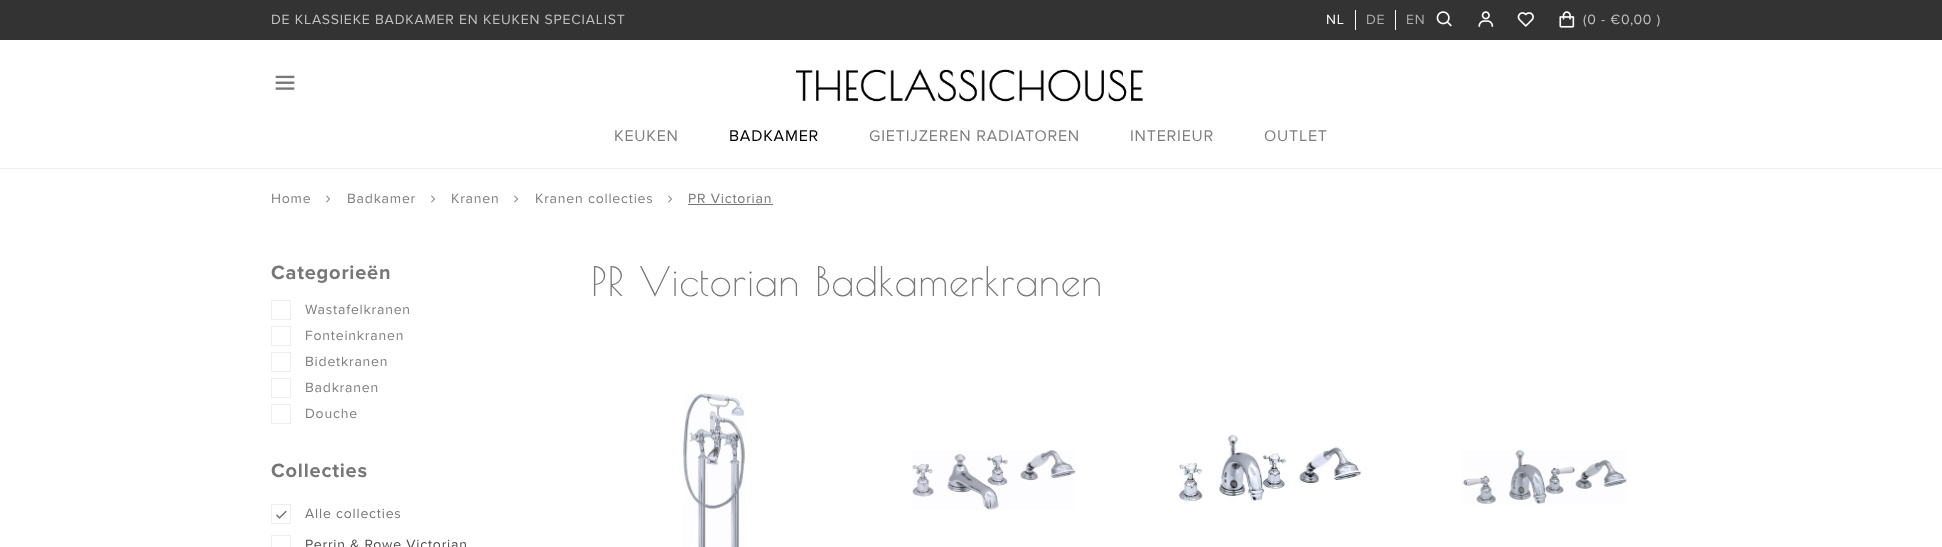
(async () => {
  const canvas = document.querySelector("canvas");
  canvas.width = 1942;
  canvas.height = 547;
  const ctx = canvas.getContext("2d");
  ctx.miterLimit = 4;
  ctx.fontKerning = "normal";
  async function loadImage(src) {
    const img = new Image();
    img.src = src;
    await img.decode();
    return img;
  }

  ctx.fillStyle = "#ffffff";
  ctx.fillRect(0, 0, 1942, 547);
  for (const [x, y, w, h, color] of [
    [0, 0, 1942, 40, "#333333"],
    [1355, 10, 1, 20, "#ffffff"],
    [1395, 10, 1, 20, "#ffffff"],
  ]) {
    ctx.fillStyle = color;
    ctx.fillRect(x, y, w, h);
  }
  ctx.drawImage(await loadImage("img/1.png"), 1436, 11, 16, 16);
  ctx.drawImage(await loadImage("img/2.png"), 1478, 11, 16, 16);
  ctx.drawImage(await loadImage("img/3.png"), 1517, 12, 17, 15);
  ctx.drawImage(await loadImage("img/4.png"), 1559, 11, 16, 17);
  ctx.fillStyle = "#eeeeee";
  ctx.fillRect(0, 168, 1942, 1);
  ctx.drawImage(await loadImage("img/5.png"), 275, 75, 20, 15);
  ctx.drawImage(await loadImage("img/6.png"), 796, 68, 347, 34);
  ctx.drawImage(await loadImage("img/7.png"), 326, 195, 4, 8);
  ctx.drawImage(await loadImage("img/7.png"), 431, 195, 4, 8);
  ctx.drawImage(await loadImage("img/7.png"), 514, 195, 4, 8);
  ctx.drawImage(await loadImage("img/7.png"), 668, 195, 4, 8);
  ctx.fillStyle = "#777777";
  ctx.fillRect(688, 204, 85, 1);
  ctx.strokeStyle = "#eeeeee";
  ctx.strokeRect(271.5, 300.5, 19, 19);
  ctx.strokeRect(271.5, 326.5, 19, 19);
  ctx.strokeRect(271.5, 352.5, 19, 19);
  ctx.strokeRect(271.5, 378.5, 19, 19);
  ctx.strokeRect(271.5, 404.5, 19, 19);
  ctx.strokeRect(271.5, 504.5, 19, 19);
  ctx.drawImage(await loadImage("img/8.png"), 276, 510, 11, 9);
  ctx.strokeRect(271.5, 535.5, 19, 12);
  ctx.drawImage(await loadImage("img/9.png"), 683, 393, 62, 154);
  ctx.drawImage(await loadImage("img/10.png"), 912, 450, 164, 60);
  ctx.drawImage(await loadImage("img/11.png"), 1177, 434, 185, 68);
  ctx.drawImage(await loadImage("img/12.png"), 1462, 450, 166, 55);
  ctx.letterSpacing = "0.8px";
  ctx.font = "14px Proxima Nova";
  ctx.fillStyle = "#c2c2c2";
  ctx.fillText("DE KLASSIEKE BADKAMER EN KEUKEN SPECIALIST", 271, 24);
  ctx.fillStyle = "#ffffff";
  ctx.fillText("NL", 1326, 24);
  ctx.fillStyle = "#adadad";
  ctx.fillText("DE", 1366, 24);
  ctx.fillText("EN", 1406, 24);
  ctx.fillStyle = "#c2c2c2";
  ctx.fillText("(0 - €0,00 )", 1583, 24);
  ctx.font = "16px Proxima Nova";
  ctx.fillStyle = "#7f7f7f";
  ctx.fillText("KEUKEN", 614, 141);
  ctx.fillStyle = "#000000";
  ctx.fillText("BADKAMER", 729, 141);
  ctx.fillStyle = "#7f7f7f";
  for (const [text, x, y] of [
    ["GIETIJZEREN RADIATOREN", 869, 141],
    ["INTERIEUR", 1130, 141],
    ["OUTLET", 1264, 141],
  ]) {
    ctx.fillText(text, x, y);
  }
  ctx.font = "14px Proxima Nova";
  for (const [text, x, y] of [
    ["Home", 271, 203],
    ["Badkamer", 347, 203],
    ["Kranen", 451, 203],
    ["Kranen collecties", 535, 203],
  ]) {
    ctx.fillText(text, x, y);
  }
  ctx.fillStyle = "#777777";
  ctx.fillText("PR Victorian", 688, 203);
  ctx.font = "bold 20px Proxima Nova";
  ctx.fillText("Categorieën", 271, 279);
  ctx.font = "14px Proxima Nova";
  ctx.fillStyle = "#7f7f7f";
  for (const [text, x, y] of [
    ["Wastafelkranen", 305, 314],
    ["Fonteinkranen", 305, 340],
    ["Bidetkranen", 305, 366],
    ["Badkranen", 305, 392],
    ["Douche", 305, 418],
  ]) {
    ctx.fillText(text, x, y);
  }
  ctx.font = "bold 20px Proxima Nova";
  ctx.fillStyle = "#777777";
  ctx.fillText("Collecties", 271, 477);
  ctx.font = "14px Proxima Nova";
  ctx.fillText("Alle collecties", 305, 518);
  ctx.fillStyle = "#4d4d4d";
  ctx.fillText("Perrin & Rowe Victorian", 305, 549);
  ctx.font = "40px Poiret One";
  ctx.fillStyle = "#777777";
  ctx.fillText("PR Victorian Badkamerkranen", 591, 296);
})();
